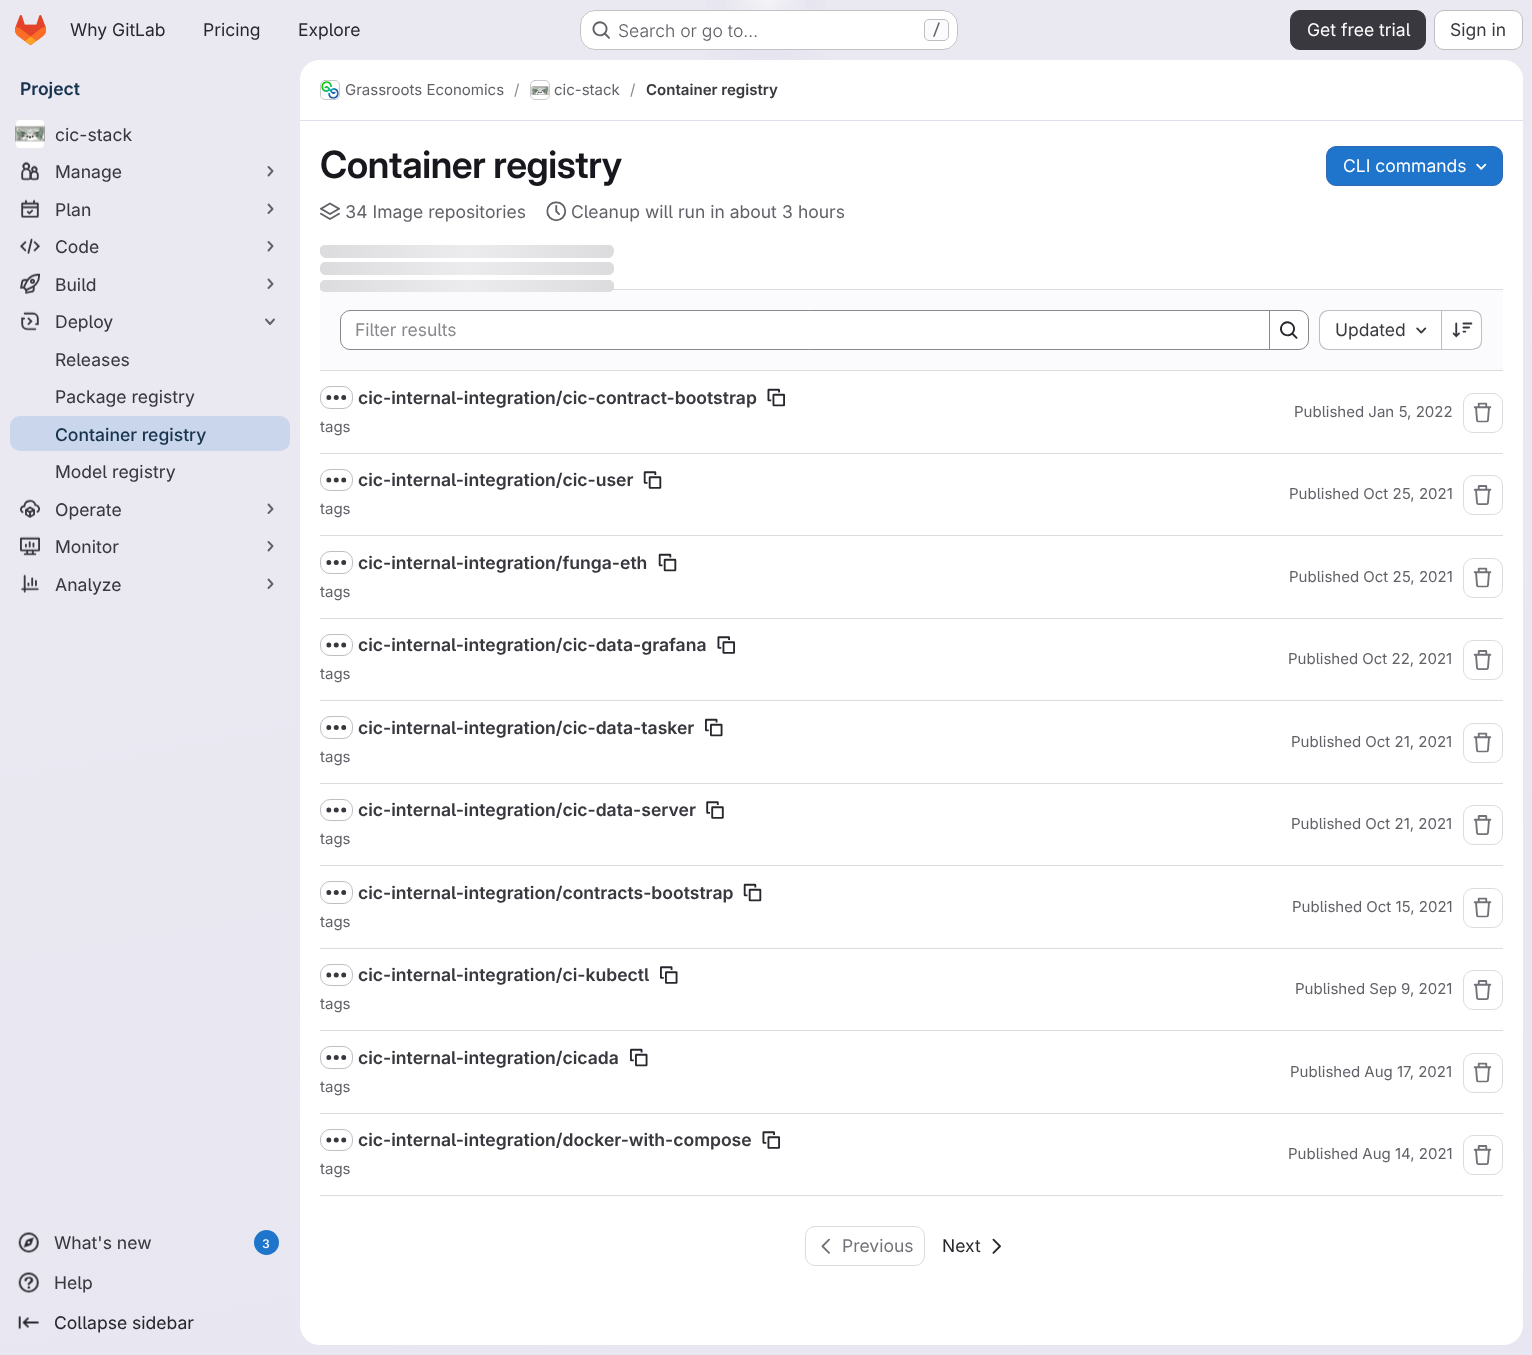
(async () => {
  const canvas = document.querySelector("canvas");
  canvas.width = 1532;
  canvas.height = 1355;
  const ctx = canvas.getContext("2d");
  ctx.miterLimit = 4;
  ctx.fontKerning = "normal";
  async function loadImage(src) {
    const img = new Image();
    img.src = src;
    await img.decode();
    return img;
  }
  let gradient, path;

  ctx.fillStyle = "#ffffff";
  ctx.fillRect(0, 0, 1532, 1355);
  gradient = ctx.createLinearGradient(905, 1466, 627, -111);
  gradient.addColorStop(0, "#e8e6f0");
  gradient.addColorStop(0.7, "#eae9f2");
  ctx.fillStyle = gradient;
  ctx.fillRect(0, 0, 1532, 1355);
  gradient = ctx.createRadialGradient(766, 0, 0, 766, 0, 766);
  gradient.addColorStop(0, "#e4e2ed");
  gradient.addColorStop(0.11, "rgba(228, 226, 237, 0)");
  ctx.fillStyle = gradient;
  ctx.beginPath();
  ctx.rect(706, 0, 120, 60);
  ctx.save();
  ctx.clip();
  ctx.scale(1, 1355 / 766);
  ctx.fillRect(0, 0, 1532, 766);
  ctx.restore();
  gradient = ctx.createRadialGradient(766, 0, 0, 766, 0, 766);
  gradient.addColorStop(0, "#e4e2ec");
  gradient.addColorStop(0.08, "rgba(228, 226, 236, 0)");
  ctx.fillStyle = gradient;
  ctx.beginPath();
  ctx.rect(741, 3, 50, 42);
  ctx.save();
  ctx.clip();
  ctx.scale(1, 1355 / 766);
  ctx.fillRect(0, 0, 1532, 766);
  ctx.restore();
  gradient = ctx.createRadialGradient(766, 0, 0, 766, 0, 1557);
  gradient.addColorStop(0, "rgba(255, 255, 255, 0.6)");
  gradient.addColorStop(0.03, "rgba(255, 255, 255, 0)");
  ctx.fillStyle = gradient;
  ctx.fillRect(726, 0, 80, 10);
  ctx.drawImage(await loadImage("img/1.png"), 15, 15, 31, 30);
  ctx.fillStyle = "#ffffff";
  ctx.beginPath();
  ctx.roundRect(580, 10, 378, 40, 15);
  ctx.fill();
  ctx.beginPath();
  ctx.roundRect(580.5, 10.5, 377, 39, 14.5);
  ctx.strokeStyle = "rgba(5, 5, 6, 0.24)";
  ctx.stroke();
  ctx.drawImage(await loadImage("img/2.png"), 592, 21, 18, 18);
  ctx.fillStyle = "#fbfafd";
  ctx.beginPath();
  ctx.roundRect(924.5, 19.5, 24, 21, 4.5);
  ctx.fill();
  ctx.strokeStyle = "#bfbfc3";
  ctx.stroke();
  ctx.fillStyle = "#3a383f";
  ctx.beginPath();
  ctx.roundRect(1290.5, 10.5, 135, 39, 9.5);
  ctx.fill();
  ctx.strokeStyle = "#3a383f";
  ctx.stroke();
  ctx.fillStyle = "#ffffff";
  ctx.beginPath();
  ctx.roundRect(1434.5, 10.5, 88, 39, 9.5);
  ctx.fill();
  ctx.strokeStyle = "#bfbfc3";
  ctx.stroke();
  ctx.beginPath();
  ctx.roundRect(15, 119, 30, 30, 5);
  ctx.fill();
  ctx.drawImage(await loadImage("img/3.png"), 15, 125, 30, 17);
  ctx.beginPath();
  ctx.roundRect(15.5, 119.5, 29, 29, 4.5);
  ctx.strokeStyle = "rgba(5, 5, 6, 0.08)";
  ctx.stroke();
  ctx.drawImage(await loadImage("img/4.png"), 21, 161, 18, 20);
  path = new Path2D("M268.5 167L272.5 171L268.5 175.5");
  ctx.strokeStyle = "#626168";
  ctx.lineWidth = 1.9;
  ctx.lineCap = "round";
  ctx.lineJoin = "round";
  ctx.stroke(path);
  ctx.drawImage(await loadImage("img/5.png"), 21, 199, 18, 19);
  path = new Path2D("M268.5 204.5L272.5 209L268.5 213");
  ctx.stroke(path);
  ctx.drawImage(await loadImage("img/6.png"), 20, 238, 20, 16);
  path = new Path2D("M268.5 242L272.5 246L268.5 250.5");
  ctx.stroke(path);
  ctx.drawImage(await loadImage("img/7.png"), 20, 273, 20, 21);
  path = new Path2D("M268.5 279.5L272.5 284L268.5 288");
  ctx.stroke(path);
  ctx.drawImage(await loadImage("img/8.png"), 21, 311, 18, 20);
  path = new Path2D("M274 319.5L270 324L266 319.5");
  ctx.stroke(path);
  ctx.fillStyle = "#c9d6eb";
  ctx.beginPath();
  ctx.roundRect(10, 416, 280, 35, 10);
  ctx.fill();
  ctx.drawImage(await loadImage("img/9.png"), 20, 499, 20, 19);
  path = new Path2D("M268.5 504.5L272.5 509L268.5 513");
  ctx.stroke(path);
  ctx.drawImage(await loadImage("img/10.png"), 20, 536, 20, 20);
  path = new Path2D("M268.5 542L272.5 546L268.5 550.5");
  ctx.stroke(path);
  ctx.drawImage(await loadImage("img/11.png"), 21, 574, 18, 19);
  path = new Path2D("M268.5 579.5L272.5 584L268.5 588");
  ctx.stroke(path);
  ctx.drawImage(await loadImage("img/12.png"), 18, 1232, 21, 21);
  ctx.fillStyle = "#1f75cb";
  ctx.beginPath();
  ctx.arc(266.5, 1242.5, 12.5, 0, Math.PI * 2);
  ctx.fill();
  ctx.drawImage(await loadImage("img/13.png"), 18, 1272, 21, 21);
  ctx.drawImage(await loadImage("img/14.png"), 18, 1315, 21, 15);
  ctx.fillStyle = "#ffffff";
  ctx.beginPath();
  ctx.roundRect(300, 60, 1223, 1285, 20);
  ctx.fill();
  ctx.beginPath();
  ctx.roundRect(300, 60, 1223, 61, [20, 20, 0, 0]);
  ctx.fill();
  ctx.fillStyle = "#e1dfec";
  ctx.fillRect(300, 120, 1223, 1);
  ctx.beginPath();
  ctx.roundRect(320.5, 80.5, 19, 19, 4.5);
  ctx.strokeStyle = "#dcdcde";
  ctx.lineWidth = 1;
  ctx.lineJoin = "miter";
  ctx.stroke();
  ctx.drawImage(await loadImage("img/15.png"), 321, 81, 18, 18);
  ctx.beginPath();
  ctx.roundRect(320.5, 80.5, 19, 19, 4.5);
  ctx.strokeStyle = "rgba(5, 5, 6, 0.08)";
  ctx.stroke();
  ctx.beginPath();
  ctx.roundRect(530.5, 80.5, 19, 19, 4.5);
  ctx.strokeStyle = "#dcdcde";
  ctx.stroke();
  ctx.drawImage(await loadImage("img/16.png"), 531, 86, 18, 9);
  ctx.beginPath();
  ctx.roundRect(530.5, 80.5, 19, 19, 4.5);
  ctx.strokeStyle = "rgba(5, 5, 6, 0.08)";
  ctx.stroke();
  ctx.fillStyle = "#1f75cb";
  ctx.beginPath();
  ctx.roundRect(1326.5, 146.5, 176, 39, 9.5);
  ctx.fill();
  ctx.strokeStyle = "#2f68b4";
  ctx.stroke();
  ctx.drawImage(await loadImage("img/17.png"), 1476, 163, 11, 7);
  ctx.drawImage(await loadImage("img/18.png"), 320, 202, 20, 18);
  ctx.drawImage(await loadImage("img/19.png"), 546, 201, 21, 21);
  ctx.fillStyle = "#fbfafd";
  ctx.fillRect(320, 290, 1183, 80);
  ctx.fillStyle = "#dcdcde";
  ctx.fillRect(320, 289, 1183, 1);
  ctx.save();
  ctx.beginPath();
  ctx.rect(320, 245, 294, 48);
  ctx.clip();
  gradient = ctx.createLinearGradient(320, 245, 614, 245);
  gradient.addColorStop(0, "#dcdcde");
  gradient.addColorStop(0.5, "#ececef");
  gradient.addColorStop(1, "#dcdcde");
  ctx.fillStyle = gradient;
  path = new Path2D("M325 245C323 245 321 246 320 248V252C320 255 322 257 325 258H609C615 257 616 246 610 245ZM325 280C318 280 318 292 325 292H609C616 292 616 280 609 280ZM325 262C318 262 318 275 325 275H609C616 275 616 262 609 262Z");
  ctx.fill(path, "evenodd");
  ctx.restore();
  ctx.fillRect(320, 370, 1183, 1);
  ctx.fillStyle = "#ffffff";
  ctx.beginPath();
  ctx.roundRect(340.5, 310.5, 929, 39, [9.5, 0, 0, 9.5]);
  ctx.fill();
  ctx.strokeStyle = "#89888d";
  ctx.stroke();
  ctx.beginPath();
  ctx.roundRect(1269.5, 310.5, 39, 39, [0, 9.5, 9.5, 0]);
  ctx.fill();
  ctx.stroke();
  ctx.drawImage(await loadImage("img/20.png"), 1280, 321, 18, 18);
  ctx.beginPath();
  ctx.roundRect(1320, 311, 121, 38, [9, 0, 0, 9]);
  ctx.fill();
  ctx.fillStyle = "#bfbfc3";
  path = new Path2D("M1329 310H1441V350H1329C1323 350 1319 346 1319 340V320C1319 314 1323 310 1329 310ZM1329 311H1441V349H1329C1324 349 1320 345 1320 340V320C1320 315 1324 311 1329 311Z");
  ctx.fill(path, "evenodd");
  ctx.drawImage(await loadImage("img/21.png"), 1416, 327, 11, 7);
  ctx.fillStyle = "#ffffff";
  ctx.beginPath();
  ctx.roundRect(1443, 311, 38, 38, [0, 9, 9, 0]);
  ctx.fill();
  ctx.fillStyle = "#bfbfc3";
  path = new Path2D("M1442 310H1468C1484 310 1482 316 1482 330C1482 344 1484 350 1468 350H1442ZM1442 311H1468C1483 311 1481 317 1481 330C1481 343 1483 349 1468 349H1442Z");
  ctx.fill(path, "evenodd");
  ctx.fillRect(1441, 310, 1, 40);
  ctx.drawImage(await loadImage("img/22.png"), 1452, 322, 21, 16);
  ctx.fillStyle = "#dcdcde";
  ctx.fillRect(320, 453, 1183, 1);
  ctx.beginPath();
  ctx.roundRect(320.5, 386.5, 32, 22, 9.5);
  ctx.strokeStyle = "#bfbfc3";
  ctx.stroke();
  ctx.drawImage(await loadImage("img/23.png"), 326, 395, 21, 5);
  ctx.drawImage(await loadImage("img/24.png"), 767, 388, 18, 19);
  ctx.beginPath();
  ctx.roundRect(1463.5, 393.5, 39, 39, 9.5);
  ctx.strokeStyle = "#dcdcde";
  ctx.stroke();
  ctx.drawImage(await loadImage("img/25.png"), 1473, 402, 19, 21);
  ctx.fillRect(320, 535, 1183, 1);
  ctx.beginPath();
  ctx.roundRect(320.5, 469.5, 32, 21, 9.5);
  ctx.strokeStyle = "#bfbfc3";
  ctx.stroke();
  ctx.drawImage(await loadImage("img/26.png"), 326, 477, 21, 6);
  ctx.drawImage(await loadImage("img/27.png"), 643, 471, 19, 18);
  ctx.beginPath();
  ctx.roundRect(1463.5, 475.5, 39, 39, 9.5);
  ctx.strokeStyle = "#dcdcde";
  ctx.stroke();
  ctx.drawImage(await loadImage("img/28.png"), 1473, 485, 19, 20);
  ctx.fillRect(320, 618, 1183, 1);
  ctx.beginPath();
  ctx.roundRect(320.5, 551.5, 32, 22, 9.5);
  ctx.strokeStyle = "#bfbfc3";
  ctx.stroke();
  ctx.drawImage(await loadImage("img/23.png"), 326, 560, 21, 5);
  ctx.drawImage(await loadImage("img/29.png"), 658, 553, 19, 19);
  ctx.beginPath();
  ctx.roundRect(1463.5, 558.5, 39, 39, 9.5);
  ctx.strokeStyle = "#dcdcde";
  ctx.stroke();
  ctx.drawImage(await loadImage("img/25.png"), 1473, 567, 19, 21);
  ctx.fillRect(320, 700, 1183, 1);
  ctx.beginPath();
  ctx.roundRect(320.5, 634.5, 32, 21, 9.5);
  ctx.strokeStyle = "#bfbfc3";
  ctx.stroke();
  ctx.drawImage(await loadImage("img/26.png"), 326, 642, 21, 6);
  ctx.drawImage(await loadImage("img/30.png"), 717, 636, 18, 18);
  ctx.beginPath();
  ctx.roundRect(1463.5, 640.5, 39, 39, 9.5);
  ctx.strokeStyle = "#dcdcde";
  ctx.stroke();
  ctx.drawImage(await loadImage("img/28.png"), 1473, 650, 19, 20);
  ctx.fillRect(320, 783, 1183, 1);
  ctx.beginPath();
  ctx.roundRect(320.5, 716.5, 32, 22, 9.5);
  ctx.strokeStyle = "#bfbfc3";
  ctx.stroke();
  ctx.drawImage(await loadImage("img/23.png"), 326, 725, 21, 5);
  ctx.drawImage(await loadImage("img/31.png"), 705, 718, 18, 19);
  ctx.beginPath();
  ctx.roundRect(1463.5, 723.5, 39, 39, 9.5);
  ctx.strokeStyle = "#dcdcde";
  ctx.stroke();
  ctx.drawImage(await loadImage("img/25.png"), 1473, 732, 19, 21);
  ctx.fillRect(320, 865, 1183, 1);
  ctx.beginPath();
  ctx.roundRect(320.5, 799.5, 32, 21, 9.5);
  ctx.strokeStyle = "#bfbfc3";
  ctx.stroke();
  ctx.drawImage(await loadImage("img/26.png"), 326, 807, 21, 6);
  ctx.drawImage(await loadImage("img/32.png"), 706, 801, 18, 18);
  ctx.beginPath();
  ctx.roundRect(1463.5, 805.5, 39, 39, 9.5);
  ctx.strokeStyle = "#dcdcde";
  ctx.stroke();
  ctx.drawImage(await loadImage("img/28.png"), 1473, 815, 19, 20);
  ctx.fillRect(320, 948, 1183, 1);
  ctx.beginPath();
  ctx.roundRect(320.5, 881.5, 32, 22, 9.5);
  ctx.strokeStyle = "#bfbfc3";
  ctx.stroke();
  ctx.drawImage(await loadImage("img/23.png"), 326, 890, 21, 5);
  ctx.drawImage(await loadImage("img/29.png"), 743, 883, 19, 19);
  ctx.beginPath();
  ctx.roundRect(1463.5, 888.5, 39, 39, 9.5);
  ctx.strokeStyle = "#dcdcde";
  ctx.stroke();
  ctx.drawImage(await loadImage("img/25.png"), 1473, 897, 19, 21);
  ctx.fillRect(320, 1030, 1183, 1);
  ctx.beginPath();
  ctx.roundRect(320.5, 964.5, 32, 21, 9.5);
  ctx.strokeStyle = "#bfbfc3";
  ctx.stroke();
  ctx.drawImage(await loadImage("img/26.png"), 326, 972, 21, 6);
  ctx.drawImage(await loadImage("img/33.png"), 660, 966, 18, 18);
  ctx.beginPath();
  ctx.roundRect(1463.5, 970.5, 39, 39, 9.5);
  ctx.strokeStyle = "#dcdcde";
  ctx.stroke();
  ctx.drawImage(await loadImage("img/28.png"), 1473, 980, 19, 20);
  ctx.fillRect(320, 1113, 1183, 1);
  ctx.beginPath();
  ctx.roundRect(320.5, 1046.5, 32, 22, 9.5);
  ctx.strokeStyle = "#bfbfc3";
  ctx.stroke();
  ctx.drawImage(await loadImage("img/23.png"), 326, 1055, 21, 5);
  ctx.drawImage(await loadImage("img/31.png"), 630, 1048, 18, 19);
  ctx.beginPath();
  ctx.roundRect(1463.5, 1053.5, 39, 39, 9.5);
  ctx.strokeStyle = "#dcdcde";
  ctx.stroke();
  ctx.drawImage(await loadImage("img/25.png"), 1473, 1062, 19, 21);
  ctx.fillRect(320, 1195, 1183, 1);
  ctx.beginPath();
  ctx.roundRect(320.5, 1129.5, 32, 21, 9.5);
  ctx.strokeStyle = "#bfbfc3";
  ctx.stroke();
  ctx.drawImage(await loadImage("img/26.png"), 326, 1137, 21, 6);
  ctx.drawImage(await loadImage("img/34.png"), 762, 1131, 18, 18);
  ctx.beginPath();
  ctx.roundRect(1463.5, 1135.5, 39, 39, 9.5);
  ctx.strokeStyle = "#dcdcde";
  ctx.stroke();
  ctx.drawImage(await loadImage("img/28.png"), 1473, 1145, 19, 20);
  ctx.beginPath();
  ctx.roundRect(805.5, 1226.5, 119, 39, 9.5);
  ctx.stroke();
  ctx.drawImage(await loadImage("img/35.png"), 821, 1238, 9, 16);
  ctx.drawImage(await loadImage("img/36.png"), 992, 1238, 9, 16);
  ctx.font = "17.5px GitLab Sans";
  ctx.fillStyle = "#28272d";
  for (const [text, x, y] of [
    ["Why GitLab", 70, 36],
    ["Pricing", 203, 36],
    ["Explore", 298, 36],
  ]) {
    ctx.fillText(text, x, y);
  }
  ctx.font = "300 17.5px GitLab Sans";
  ctx.fillStyle = "#626168";
  ctx.fillText("Search or go to…", 618, 37);
  ctx.font = "500 15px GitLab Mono";
  ctx.fillText("/", 932, 35);
  ctx.font = "17.5px GitLab Sans";
  ctx.fillStyle = "#ffffff";
  ctx.fillText("Get free trial", 1307, 36);
  ctx.fillStyle = "#3a383f";
  ctx.fillText("Sign in", 1450, 36);
  ctx.font = "600 17.5px 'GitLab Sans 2'";
  ctx.fillStyle = "#18334e";
  ctx.fillText("Project", 20, 95);
  ctx.font = "17.5px 'GitLab Sans 2'";
  ctx.fillStyle = "#3a383f";
  for (const [text, x, y] of [
    ["cic-stack", 55, 141],
    ["Manage", 55, 178],
    ["Plan", 55, 216],
    ["Code", 55, 253],
    ["Build", 55, 291],
    ["Deploy", 55, 328],
    ["Releases", 55, 366],
    ["Package registry", 55, 403],
  ]) {
    ctx.fillText(text, x, y);
  }
  ctx.font = "500 17.5px GitLab Sans";
  ctx.fillStyle = "#18334e";
  ctx.fillText("Container registry", 55, 441);
  ctx.font = "17.5px 'GitLab Sans 2'";
  ctx.fillStyle = "#3a383f";
  for (const [text, x, y] of [
    ["Model registry", 55, 478],
    ["Operate", 55, 516],
    ["Monitor", 55, 553],
    ["Analyze", 55, 591],
    ["What's new", 54, 1249],
  ]) {
    ctx.fillText(text, x, y);
  }
  ctx.font = "500 12px GitLab Sans";
  ctx.fillStyle = "#ffffff";
  ctx.fillText("3", 262, 1248);
  ctx.font = "17.5px 'GitLab Sans 2'";
  ctx.fillStyle = "#3a383f";
  ctx.fillText("Help", 54, 1289);
  ctx.fillStyle = "#28272d";
  ctx.fillText("Collapse sidebar", 54, 1329);
  ctx.font = "15px GitLab Sans";
  ctx.fillStyle = "#626168";
  ctx.fillText("Grassroots Economics", 345, 95);
  ctx.fillStyle = "#89888d";
  ctx.fillText("/", 514, 95);
  ctx.fillStyle = "#626168";
  ctx.fillText("cic-stack", 554, 95);
  ctx.fillStyle = "#89888d";
  ctx.fillText("/", 630, 95);
  ctx.font = "600 15px 'GitLab Sans 2'";
  ctx.fillStyle = "#3a383f";
  ctx.fillText("Container registry", 646, 95);
  ctx.letterSpacing = "-0.4px";
  ctx.font = "600 37.5px GitLab Sans";
  ctx.fillStyle = "#18171d";
  ctx.fillText("Container registry", 320, 178);
  ctx.letterSpacing = "0px";
  ctx.font = "17.5px GitLab Sans";
  ctx.fillStyle = "#ffffff";
  ctx.fillText("CLI commands", 1343, 172);
  ctx.fillStyle = "#626168";
  ctx.fillText("34 Image repositories", 345, 218);
  ctx.fillText("Cleanup will run in about 3 hours", 571, 218);
  ctx.fillStyle = "#89888d";
  ctx.fillText("Filter results", 355, 336);
  ctx.fillStyle = "#3a383f";
  ctx.fillText("Updated", 1335, 336);
  ctx.font = "600 17.5px 'GitLab Sans 2'";
  ctx.fillText("cic-internal-integration/cic-contract-bootstrap", 358, 404);
  ctx.font = "15px GitLab Sans";
  ctx.fillStyle = "#626168";
  ctx.fillText("tags", 320, 432);
  ctx.fillText("Published Jan 5, 2022", 1294, 417);
  ctx.font = "600 17.5px 'GitLab Sans 2'";
  ctx.fillStyle = "#3a383f";
  ctx.fillText("cic-internal-integration/cic-user", 358, 486);
  ctx.font = "15px GitLab Sans";
  ctx.fillStyle = "#626168";
  ctx.fillText("tags", 320, 514);
  ctx.fillText("Published Oct 25, 2021", 1289, 499);
  ctx.font = "600 17.5px 'GitLab Sans 2'";
  ctx.fillStyle = "#3a383f";
  ctx.fillText("cic-internal-integration/funga-eth", 358, 569);
  ctx.font = "15px GitLab Sans";
  ctx.fillStyle = "#626168";
  ctx.fillText("tags", 320, 597);
  ctx.fillText("Published Oct 25, 2021", 1289, 582);
  ctx.font = "600 17.5px 'GitLab Sans 2'";
  ctx.fillStyle = "#3a383f";
  ctx.fillText("cic-internal-integration/cic-data-grafana", 358, 651);
  ctx.font = "15px GitLab Sans";
  ctx.fillStyle = "#626168";
  ctx.fillText("tags", 320, 679);
  ctx.fillText("Published Oct 22, 2021", 1288, 664);
  ctx.font = "600 17.5px 'GitLab Sans 2'";
  ctx.fillStyle = "#3a383f";
  ctx.fillText("cic-internal-integration/cic-data-tasker", 358, 734);
  ctx.font = "15px GitLab Sans";
  ctx.fillStyle = "#626168";
  ctx.fillText("tags", 320, 762);
  ctx.fillText("Published Oct 21, 2021", 1291, 747);
  ctx.font = "600 17.5px 'GitLab Sans 2'";
  ctx.fillStyle = "#3a383f";
  ctx.fillText("cic-internal-integration/cic-data-server", 358, 816);
  ctx.font = "15px GitLab Sans";
  ctx.fillStyle = "#626168";
  ctx.fillText("tags", 320, 844);
  ctx.fillText("Published Oct 21, 2021", 1291, 829);
  ctx.font = "600 17.5px 'GitLab Sans 2'";
  ctx.fillStyle = "#3a383f";
  ctx.fillText("cic-internal-integration/contracts-bootstrap", 358, 899);
  ctx.font = "15px GitLab Sans";
  ctx.fillStyle = "#626168";
  ctx.fillText("tags", 320, 927);
  ctx.fillText("Published Oct 15, 2021", 1292, 912);
  ctx.font = "600 17.5px 'GitLab Sans 2'";
  ctx.fillStyle = "#3a383f";
  ctx.fillText("cic-internal-integration/ci-kubectl", 358, 981);
  ctx.font = "15px GitLab Sans";
  ctx.fillStyle = "#626168";
  ctx.fillText("tags", 320, 1009);
  ctx.fillText("Published Sep 9, 2021", 1295, 994);
  ctx.font = "600 17.5px 'GitLab Sans 2'";
  ctx.fillStyle = "#3a383f";
  ctx.fillText("cic-internal-integration/cicada", 358, 1064);
  ctx.font = "15px GitLab Sans";
  ctx.fillStyle = "#626168";
  ctx.fillText("tags", 320, 1092);
  ctx.fillText("Published Aug 17, 2021", 1290, 1077);
  ctx.font = "600 17.5px 'GitLab Sans 2'";
  ctx.fillStyle = "#3a383f";
  ctx.fillText("cic-internal-integration/docker-with-compose", 358, 1146);
  ctx.font = "15px GitLab Sans";
  ctx.fillStyle = "#626168";
  ctx.fillText("tags", 320, 1174);
  ctx.fillText("Published Aug 14, 2021", 1288, 1159);
  ctx.font = "17.5px GitLab Sans";
  ctx.fillStyle = "#737278";
  ctx.fillText("Previous", 842, 1252);
  ctx.fillStyle = "#28272d";
  ctx.fillText("Next", 942, 1252);
})();
